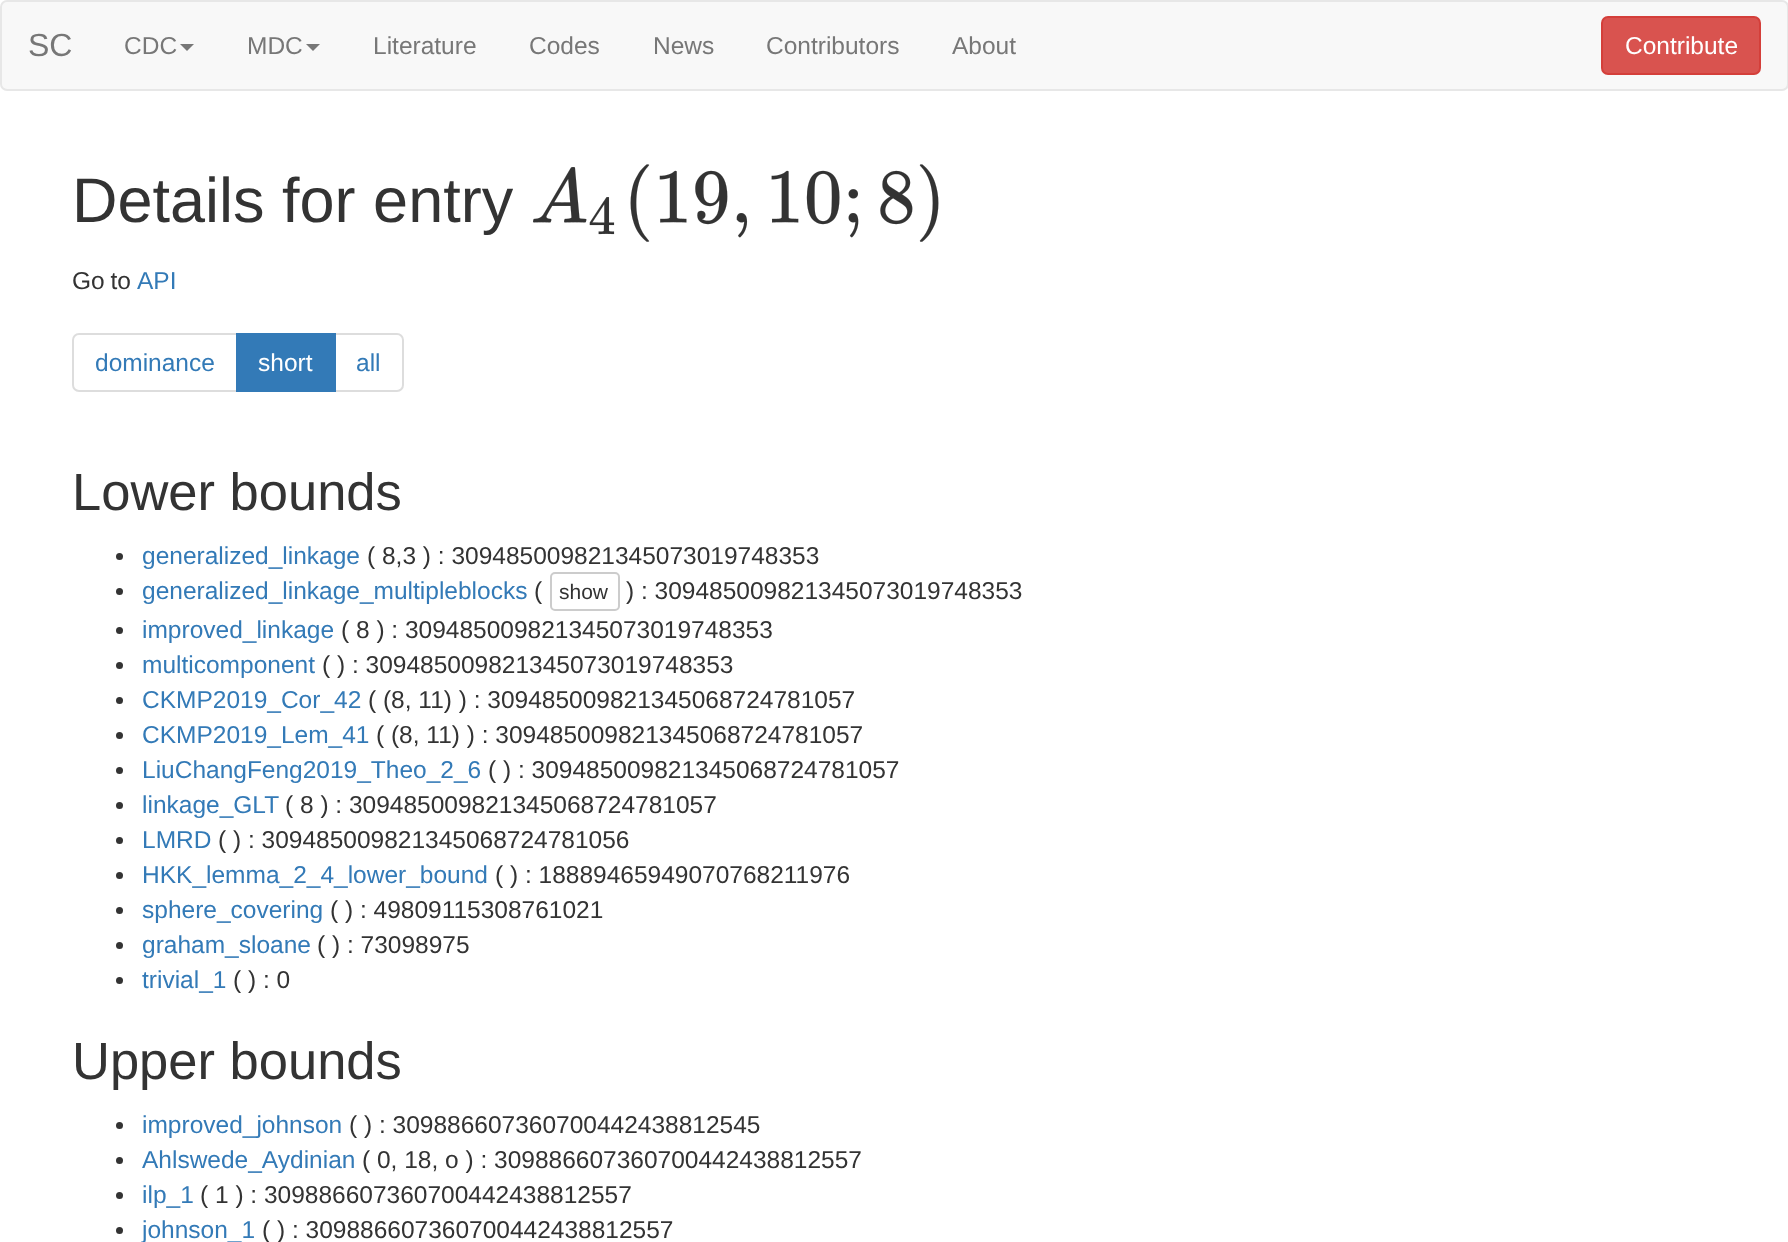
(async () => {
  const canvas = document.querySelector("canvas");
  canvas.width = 1788;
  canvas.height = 1242;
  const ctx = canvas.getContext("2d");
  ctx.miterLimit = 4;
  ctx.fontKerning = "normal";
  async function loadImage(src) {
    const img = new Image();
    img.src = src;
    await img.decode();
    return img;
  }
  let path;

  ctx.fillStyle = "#ffffff";
  ctx.fillRect(0, 0, 1788, 1242);
  ctx.fillStyle = "#f8f8f8";
  ctx.beginPath();
  ctx.roundRect(1, 1, 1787, 89, 6);
  ctx.fill();
  ctx.strokeStyle = "#e7e7e7";
  ctx.lineWidth = 2;
  ctx.stroke();
  ctx.fillStyle = "#777777";
  path = new Path2D("M180 44H194L187 51Z");
  ctx.fill(path);
  path = new Path2D("M306 44H320L313 51Z");
  ctx.fill(path);
  ctx.fillStyle = "#d9534f";
  ctx.beginPath();
  ctx.roundRect(1602, 17, 158, 57, 6);
  ctx.fill();
  ctx.strokeStyle = "#d43f3a";
  ctx.stroke();
  ctx.drawImage(await loadImage("img/1.png"), 533, 164, 406, 78);
  ctx.beginPath();
  ctx.roundRect(73, 334, 164, 57, [6, 0, 0, 6]);
  ctx.strokeStyle = "#dddddd";
  ctx.stroke();
  ctx.beginPath();
  ctx.roundRect(335, 334, 68, 57, [0, 6, 6, 0]);
  ctx.stroke();
  ctx.fillStyle = "#337ab7";
  ctx.fillRect(236, 333, 100, 59);
  ctx.fillStyle = "#333333";
  ctx.beginPath();
  ctx.arc(119.5, 556.5, 3.5, 0, Math.PI * 2);
  ctx.fill();
  ctx.beginPath();
  ctx.arc(119.5, 591.5, 3.5, 0, Math.PI * 2);
  ctx.fill();
  ctx.beginPath();
  ctx.roundRect(551, 573, 68, 37, 4);
  ctx.strokeStyle = "#cccccc";
  ctx.stroke();
  ctx.beginPath();
  ctx.arc(119.5, 630.5, 3.5, 0, Math.PI * 2);
  ctx.fill();
  ctx.beginPath();
  ctx.arc(119.5, 665.5, 3.5, 0, Math.PI * 2);
  ctx.fill();
  ctx.beginPath();
  ctx.arc(119.5, 700.5, 3.5, 0, Math.PI * 2);
  ctx.fill();
  ctx.beginPath();
  ctx.arc(119.5, 735.5, 3.5, 0, Math.PI * 2);
  ctx.fill();
  ctx.beginPath();
  ctx.arc(119.5, 770.5, 3.5, 0, Math.PI * 2);
  ctx.fill();
  ctx.beginPath();
  ctx.arc(119.5, 805.5, 3.5, 0, Math.PI * 2);
  ctx.fill();
  ctx.beginPath();
  ctx.arc(119.5, 840.5, 3.5, 0, Math.PI * 2);
  ctx.fill();
  ctx.beginPath();
  ctx.arc(119.5, 875.5, 3.5, 0, Math.PI * 2);
  ctx.fill();
  ctx.beginPath();
  ctx.arc(119.5, 910.5, 3.5, 0, Math.PI * 2);
  ctx.fill();
  ctx.beginPath();
  ctx.arc(119.5, 945.5, 3.5, 0, Math.PI * 2);
  ctx.fill();
  ctx.beginPath();
  ctx.arc(119.5, 980.5, 3.5, 0, Math.PI * 2);
  ctx.fill();
  ctx.beginPath();
  ctx.arc(119.5, 1125.5, 3.5, 0, Math.PI * 2);
  ctx.fill();
  ctx.beginPath();
  ctx.arc(119.5, 1160.5, 3.5, 0, Math.PI * 2);
  ctx.fill();
  ctx.beginPath();
  ctx.arc(119.5, 1195.5, 3.5, 0, Math.PI * 2);
  ctx.fill();
  ctx.beginPath();
  ctx.arc(119.5, 1230.5, 3.5, 0, Math.PI * 2);
  ctx.fill();
  ctx.font = "32px Liberation Sans";
  ctx.fillStyle = "#777777";
  ctx.fillText("SC", 28, 56);
  ctx.font = "24.5px Liberation Sans";
  for (const [text, x, y] of [
    ["CDC", 124, 54],
    ["MDC", 247, 54],
    ["Literature", 373, 54],
    ["Codes", 529, 54],
    ["News", 653, 54],
    ["Contributors", 766, 54],
    ["About", 952, 54],
  ]) {
    ctx.fillText(text, x, y);
  }
  ctx.fillStyle = "#ffffff";
  ctx.fillText("Contribute", 1625, 54);
  ctx.font = "63px Liberation Sans";
  ctx.fillStyle = "#333333";
  ctx.fillText("Details for entry", 72, 222);
  ctx.wordSpacing = "-1px";
  ctx.font = "24.5px Liberation Sans";
  ctx.fillText("Go to", 72, 289);
  ctx.wordSpacing = "0px";
  ctx.fillStyle = "#337ab7";
  ctx.fillText("API", 137, 289);
  ctx.fillText("dominance", 95, 371);
  ctx.fillStyle = "#ffffff";
  ctx.fillText("short", 258, 371);
  ctx.fillStyle = "#337ab7";
  ctx.fillText("all", 356, 371);
  ctx.font = "52.5px Liberation Sans";
  ctx.fillStyle = "#333333";
  ctx.fillText("Lower bounds", 72, 510);
  ctx.font = "24.5px Liberation Sans";
  ctx.fillStyle = "#337ab7";
  ctx.fillText("generalized_linkage", 142, 564);
  ctx.fillStyle = "#333333";
  ctx.fillText("( 8,3 ) : 309485009821345073019748353", 367, 564);
  ctx.fillStyle = "#337ab7";
  ctx.fillText("generalized_linkage_multipleblocks", 142, 599);
  ctx.fillStyle = "#333333";
  ctx.fillText("(", 534, 599);
  ctx.font = "21px Liberation Sans";
  ctx.fillText("show", 559, 599);
  ctx.font = "24.5px Liberation Sans";
  ctx.fillText(") : 309485009821345073019748353", 626, 599);
  ctx.fillStyle = "#337ab7";
  ctx.fillText("improved_linkage", 142, 638);
  ctx.fillStyle = "#333333";
  ctx.fillText("( 8 ) : 309485009821345073019748353", 341, 638);
  ctx.fillStyle = "#337ab7";
  ctx.fillText("multicomponent", 142, 673);
  ctx.fillStyle = "#333333";
  ctx.fillText("( ) : 309485009821345073019748353", 322, 673);
  ctx.fillStyle = "#337ab7";
  ctx.fillText("CKMP2019_Cor_42", 142, 708);
  ctx.fillStyle = "#333333";
  ctx.fillText("( (8, 11) ) : 309485009821345068724781057", 368, 708);
  ctx.fillStyle = "#337ab7";
  ctx.fillText("CKMP2019_Lem_41", 142, 743);
  ctx.fillStyle = "#333333";
  ctx.fillText("( (8, 11) ) : 309485009821345068724781057", 376, 743);
  ctx.fillStyle = "#337ab7";
  ctx.fillText("LiuChangFeng2019_Theo_2_6", 142, 778);
  ctx.fillStyle = "#333333";
  ctx.fillText("( ) : 309485009821345068724781057", 488, 778);
  ctx.fillStyle = "#337ab7";
  ctx.fillText("linkage_GLT", 142, 813);
  ctx.fillStyle = "#333333";
  ctx.fillText("( 8 ) : 309485009821345068724781057", 285, 813);
  ctx.fillStyle = "#337ab7";
  ctx.fillText("LMRD", 142, 848);
  ctx.fillStyle = "#333333";
  ctx.fillText("( ) : 309485009821345068724781056", 218, 848);
  ctx.fillStyle = "#337ab7";
  ctx.fillText("HKK_lemma_2_4_lower_bound", 142, 883);
  ctx.fillStyle = "#333333";
  ctx.fillText("( ) : 18889465949070768211976", 495, 883);
  ctx.fillStyle = "#337ab7";
  ctx.fillText("sphere_covering", 142, 918);
  ctx.fillStyle = "#333333";
  ctx.fillText("( ) : 49809115308761021", 330, 918);
  ctx.fillStyle = "#337ab7";
  ctx.fillText("graham_sloane", 142, 953);
  ctx.fillStyle = "#333333";
  ctx.fillText("( ) : 73098975", 317, 953);
  ctx.fillStyle = "#337ab7";
  ctx.fillText("trivial_1", 142, 988);
  ctx.fillStyle = "#333333";
  ctx.fillText("( ) : 0", 233, 988);
  ctx.font = "52.5px Liberation Sans";
  ctx.fillText("Upper bounds", 72, 1079);
  ctx.font = "24.5px Liberation Sans";
  ctx.fillStyle = "#337ab7";
  ctx.fillText("improved_johnson", 142, 1133);
  ctx.fillStyle = "#333333";
  ctx.fillText("( ) : 309886607360700442438812545", 349, 1133);
  ctx.fillStyle = "#337ab7";
  ctx.fillText("Ahlswede_Aydinian", 142, 1168);
  ctx.fillStyle = "#333333";
  ctx.fillText("( 0, 18, o ) : 309886607360700442438812557", 362, 1168);
  ctx.fillStyle = "#337ab7";
  ctx.fillText("ilp_1", 142, 1203);
  ctx.fillStyle = "#333333";
  ctx.fillText("( 1 ) : 309886607360700442438812557", 200, 1203);
  ctx.fillStyle = "#337ab7";
  ctx.fillText("johnson_1", 142, 1238);
  ctx.fillStyle = "#333333";
  ctx.fillText("( ) : 309886607360700442438812557", 262, 1238);
})();
